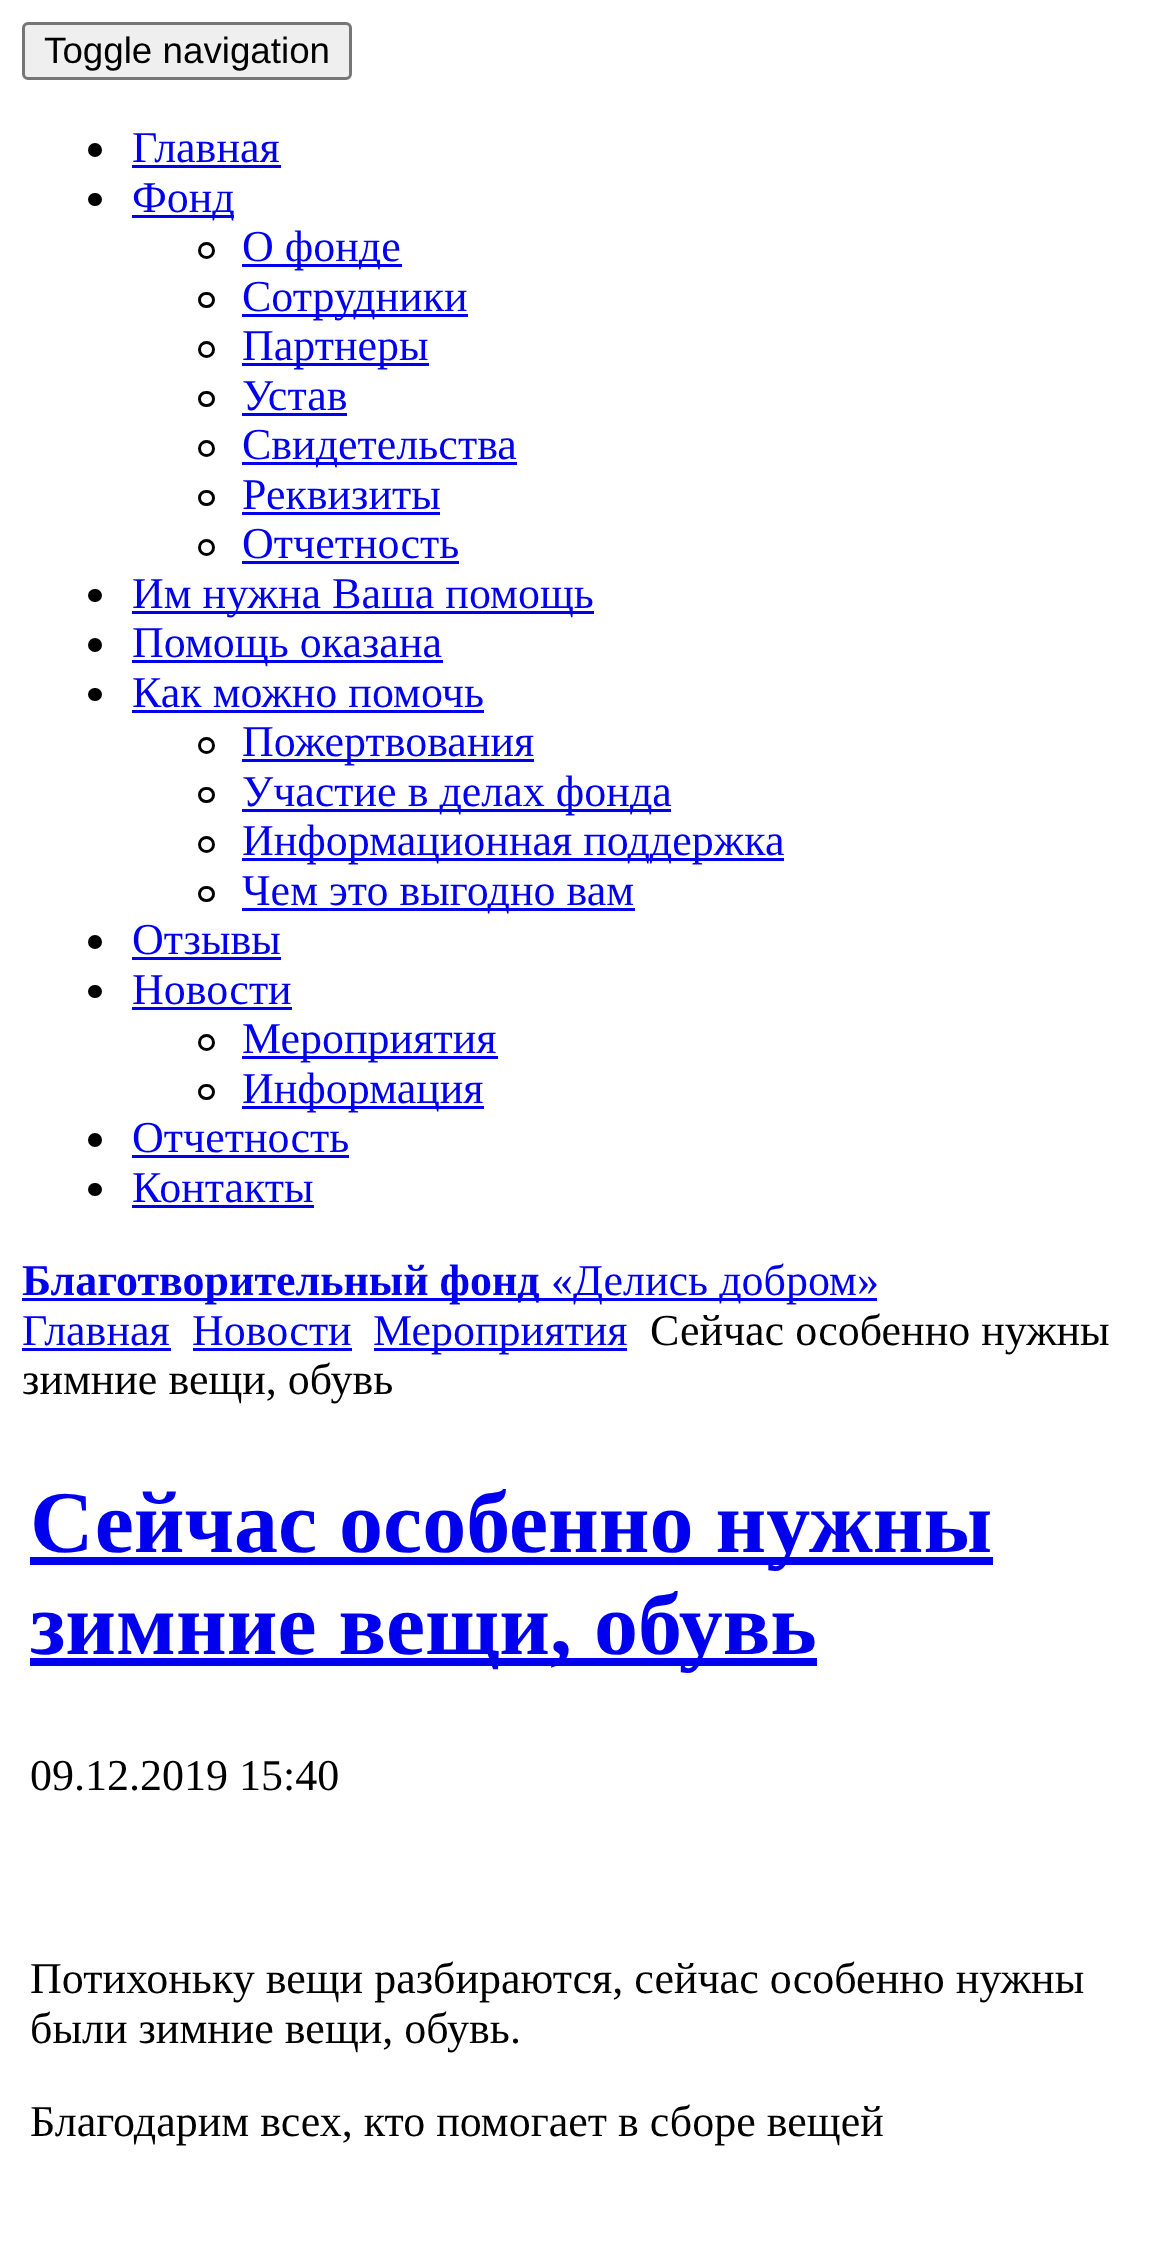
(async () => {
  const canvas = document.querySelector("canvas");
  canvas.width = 1153;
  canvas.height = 2249;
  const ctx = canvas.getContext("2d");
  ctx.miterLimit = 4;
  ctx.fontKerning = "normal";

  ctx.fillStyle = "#ffffff";
  ctx.fillRect(0, 0, 1153, 2249);
  ctx.fillStyle = "#efefef";
  ctx.beginPath();
  ctx.roundRect(23.5, 23.5, 327, 55, 4.5);
  ctx.fill();
  ctx.strokeStyle = "#767676";
  ctx.lineWidth = 3;
  ctx.stroke();
  ctx.fillStyle = "#000000";
  ctx.beginPath();
  ctx.arc(95, 150, 7, 0, Math.PI * 2);
  ctx.fill();
  ctx.fillStyle = "#0000ee";
  ctx.fillRect(132, 165, 149, 3);
  ctx.fillStyle = "#000000";
  ctx.beginPath();
  ctx.roundRect(88, 193, 14, 13, 6.5);
  ctx.fill();
  ctx.fillStyle = "#0000ee";
  ctx.fillRect(132, 215, 102, 3);
  ctx.beginPath();
  ctx.arc(206.5, 250.5, 7, 0, Math.PI * 2);
  ctx.strokeStyle = "#000000";
  ctx.stroke();
  ctx.fillRect(242, 264, 160, 3);
  ctx.beginPath();
  ctx.roundRect(199.5, 293.5, 14, 13, 6.5);
  ctx.stroke();
  ctx.fillRect(242, 314, 226, 3);
  ctx.beginPath();
  ctx.arc(206.5, 349.5, 7, 0, Math.PI * 2);
  ctx.stroke();
  ctx.fillRect(242, 363, 187, 3);
  ctx.beginPath();
  ctx.roundRect(199.5, 392.5, 14, 13, 6.5);
  ctx.stroke();
  ctx.fillRect(242, 413, 105, 3);
  ctx.beginPath();
  ctx.arc(206.5, 448.5, 7, 0, Math.PI * 2);
  ctx.stroke();
  ctx.fillRect(242, 462, 275, 3);
  ctx.beginPath();
  ctx.roundRect(199.5, 491.5, 14, 13, 6.5);
  ctx.stroke();
  ctx.fillRect(242, 512, 198, 3);
  ctx.beginPath();
  ctx.arc(206.5, 547.5, 7, 0, Math.PI * 2);
  ctx.stroke();
  ctx.fillRect(242, 561, 217, 3);
  ctx.fillStyle = "#000000";
  ctx.beginPath();
  ctx.roundRect(88, 589, 14, 13, 6.5);
  ctx.fill();
  ctx.fillStyle = "#0000ee";
  ctx.fillRect(132, 611, 462, 3);
  ctx.fillStyle = "#000000";
  ctx.beginPath();
  ctx.arc(95, 645, 7, 0, Math.PI * 2);
  ctx.fill();
  ctx.fillStyle = "#0000ee";
  ctx.fillRect(132, 660, 311, 3);
  ctx.fillStyle = "#000000";
  ctx.beginPath();
  ctx.roundRect(88, 688, 14, 13, 6.5);
  ctx.fill();
  ctx.fillStyle = "#0000ee";
  ctx.fillRect(132, 710, 352, 3);
  ctx.beginPath();
  ctx.arc(206.5, 745.5, 7, 0, Math.PI * 2);
  ctx.stroke();
  ctx.fillRect(242, 759, 292, 3);
  ctx.beginPath();
  ctx.roundRect(199.5, 788.5, 14, 13, 6.5);
  ctx.stroke();
  ctx.fillRect(242, 809, 429, 3);
  ctx.beginPath();
  ctx.arc(206.5, 844.5, 7, 0, Math.PI * 2);
  ctx.stroke();
  ctx.fillRect(242, 858, 542, 3);
  ctx.beginPath();
  ctx.roundRect(199.5, 887.5, 14, 13, 6.5);
  ctx.stroke();
  ctx.fillRect(242, 908, 393, 3);
  ctx.fillStyle = "#000000";
  ctx.beginPath();
  ctx.arc(95, 942, 7, 0, Math.PI * 2);
  ctx.fill();
  ctx.fillStyle = "#0000ee";
  ctx.fillRect(132, 957, 149, 3);
  ctx.fillStyle = "#000000";
  ctx.beginPath();
  ctx.roundRect(88, 985, 14, 13, 6.5);
  ctx.fill();
  ctx.fillStyle = "#0000ee";
  ctx.fillRect(132, 1007, 160, 3);
  ctx.beginPath();
  ctx.arc(206.5, 1042.5, 7, 0, Math.PI * 2);
  ctx.stroke();
  ctx.fillRect(242, 1056, 256, 3);
  ctx.beginPath();
  ctx.roundRect(199.5, 1085.5, 14, 13, 6.5);
  ctx.stroke();
  ctx.fillRect(242, 1106, 242, 3);
  ctx.fillStyle = "#000000";
  ctx.beginPath();
  ctx.arc(95, 1140, 7, 0, Math.PI * 2);
  ctx.fill();
  ctx.fillStyle = "#0000ee";
  ctx.fillRect(132, 1155, 217, 3);
  ctx.fillStyle = "#000000";
  ctx.beginPath();
  ctx.roundRect(88, 1183, 14, 13, 6.5);
  ctx.fill();
  for (const [x, y, w, h, color] of [
    [132, 1205, 182, 3, "#0000ee"],
    [22, 1298, 517, 3, "#0000ee"],
    [539, 1298, 338, 3, "#0000ee"],
    [22, 1348, 149, 3, "#0000ee"],
    [193, 1348, 159, 3, "#0000ee"],
    [374, 1348, 253, 3, "#0000ee"],
    [30, 1557, 963, 8, "#0000ee"],
    [30, 1658, 787, 8, "#0000ee"],
  ]) {
    ctx.fillStyle = color;
    ctx.fillRect(x, y, w, h);
  }
  ctx.font = "36.75px Liberation Sans";
  ctx.fillStyle = "#000000";
  ctx.fillText("Toggle navigation", 44, 63);
  ctx.font = "44px Liberation Serif";
  ctx.fillStyle = "#0000ee";
  for (const [text, x, y] of [
    ["Главная", 132, 162],
    ["Фонд", 132, 212],
    ["О фонде", 242, 261],
    ["Сотрудники", 242, 311],
    ["Партнеры", 242, 360],
    ["Устав", 242, 410],
    ["Свидетельства", 242, 459],
    ["Реквизиты", 242, 509],
    ["Отчетность", 242, 558],
    ["Им нужна Ваша помощь", 132, 608],
    ["Помощь оказана", 132, 657],
    ["Как можно помочь", 132, 707],
    ["Пожертвования", 242, 756],
    ["Участие в делах фонда", 242, 806],
    ["Информационная поддержка", 242, 855],
    ["Чем это выгодно вам", 242, 905],
    ["Отзывы", 132, 954],
    ["Новости", 132, 1004],
    ["Мероприятия", 242, 1053],
    ["Информация", 242, 1103],
    ["Отчетность", 132, 1152],
    ["Контакты", 132, 1202],
  ]) {
    ctx.fillText(text, x, y);
  }
  ctx.font = "bold 44px Liberation Serif";
  ctx.fillText("Благотворительный фонд", 22, 1295);
  ctx.font = "44px Liberation Serif";
  for (const [text, x, y] of [
    ["«Делись добром»", 551, 1295],
    ["Главная", 22, 1345],
    ["Новости", 192, 1345],
    ["Мероприятия", 373, 1345],
  ]) {
    ctx.fillText(text, x, y);
  }
  ctx.fillStyle = "#000000";
  ctx.fillText("Сейчас особенно нужны", 650, 1345);
  ctx.fillText("зимние вещи, обувь", 22, 1394);
  ctx.font = "bold 88px Liberation Serif";
  ctx.fillStyle = "#0000ee";
  ctx.fillText("Сейчас особенно нужны", 30, 1552);
  ctx.fillText("зимние вещи, обувь", 30, 1654);
  ctx.font = "44px Liberation Serif";
  ctx.fillStyle = "#000000";
  for (const [text, x, y] of [
    ["09.12.2019 15:40", 30, 1790],
    ["Потихоньку вещи разбираются, сейчас особенно нужны", 30, 1993],
    ["были зимние вещи, обувь.", 30, 2043],
    ["Благодарим всех, кто помогает в сборе вещей", 30, 2136],
  ]) {
    ctx.fillText(text, x, y);
  }
})();
